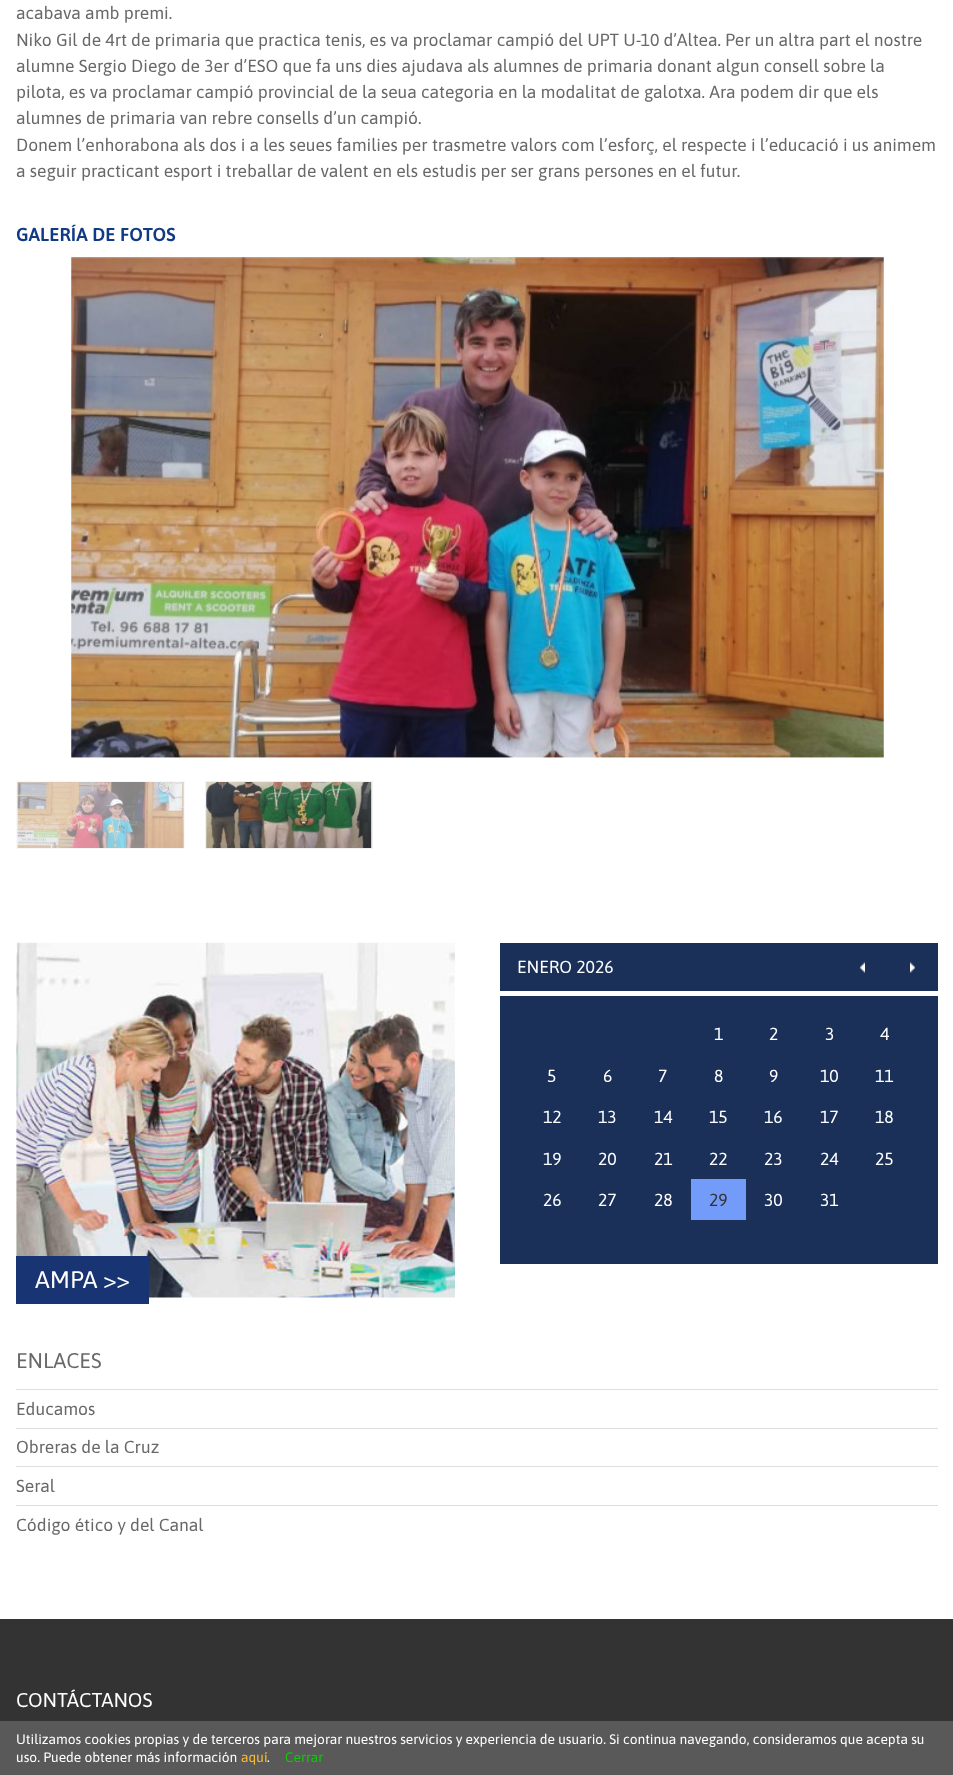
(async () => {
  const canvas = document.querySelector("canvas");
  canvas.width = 953;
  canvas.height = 1775;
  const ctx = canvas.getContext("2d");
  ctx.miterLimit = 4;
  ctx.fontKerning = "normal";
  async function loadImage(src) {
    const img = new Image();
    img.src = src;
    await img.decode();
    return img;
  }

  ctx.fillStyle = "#333333";
  ctx.fillRect(0, 0, 953, 1775);
  ctx.fillStyle = "#ffffff";
  ctx.fillRect(0, 0, 953, 1619);
  ctx.drawImage(await loadImage("img/1.png"), 71, 257, 813, 501);
  ctx.drawImage(await loadImage("img/2.png"), 17, 782, 167, 66);
  ctx.strokeStyle = "#f8f8f8";
  ctx.strokeRect(16.5, 781.5, 168, 67);
  ctx.drawImage(await loadImage("img/3.png"), 206, 782, 166, 66);
  ctx.strokeStyle = "#f1f1f1";
  ctx.strokeRect(205.5, 781.5, 167, 67);
  ctx.fillStyle = "#1a3059";
  ctx.fillRect(500, 943, 438, 48);
  ctx.drawImage(await loadImage("img/4.png"), 860, 962, 5, 11);
  ctx.drawImage(await loadImage("img/5.png"), 910, 962, 5, 11);
  ctx.fillRect(500, 996, 438, 268);
  ctx.fillStyle = "#739bf9";
  ctx.fillRect(691, 1179, 55, 41);
  ctx.drawImage(await loadImage("img/6.png"), 16, 942, 439, 356);
  for (const [x, y, w, h, color] of [
    [16, 1256, 133, 48, "#183473"],
    [16, 1389, 922, 1, "#dddddd"],
    [16, 1428, 922, 1, "#dddddd"],
    [16, 1466, 922, 1, "#dddddd"],
    [16, 1505, 922, 1, "#dddddd"],
    [0, 1721, 953, 54, "#595959"],
  ]) {
    ctx.fillStyle = color;
    ctx.fillRect(x, y, w, h);
  }
  ctx.font = "17.5px Asap";
  ctx.fillStyle = "#686868";
  for (const [text, x, y] of [
    ["acabava amb premi.", 16, 19],
    ["Niko Gil de 4rt de primaria que practica tenis, es va proclamar campió del UPT U-10 d’Altea. Per un altra part el nostre", 16, 46],
    ["alumne Sergio Diego de 3er d’ESO que fa uns dies ajudava als alumnes de primaria donant algun consell sobre la", 16, 72],
    ["pilota, es va proclamar campió provincial de la seua categoria en la modalitat de galotxa. Ara podem dir que els", 16, 98],
    ["alumnes de primaria van rebre consells d’un campió.", 16, 124],
    ["Donem l’enhorabona als dos i a les seues families per trasmetre valors com l’esforç, el respecte i l’educació i us animem", 16, 151],
    ["a seguir practicant esport i treballar de valent en els estudis per ser grans persones en el futur.", 16, 177],
  ]) {
    ctx.fillText(text, x, y);
  }
  ctx.font = "600 18.75px Asap";
  ctx.fillStyle = "#113a85";
  ctx.fillText("GALERÍA DE FOTOS", 16, 241);
  ctx.font = "17.5px Asap";
  ctx.fillStyle = "#ffffff";
  for (const [text, x, y] of [
    ["ENERO 2026", 517, 973],
    ["1", 714, 1040],
    ["2", 769, 1040],
    ["3", 825, 1040],
    ["4", 880, 1040],
    ["5", 547, 1082],
    ["6", 603, 1082],
    ["7", 658, 1082],
    ["8", 714, 1082],
    ["9", 769, 1082],
    ["10", 820, 1082],
    ["11", 875, 1082],
    ["12", 543, 1123],
    ["13", 598, 1123],
    ["14", 654, 1123],
    ["15", 709, 1123],
    ["16", 764, 1123],
    ["17", 820, 1123],
    ["18", 875, 1123],
    ["19", 543, 1165],
    ["20", 598, 1165],
    ["21", 654, 1165],
    ["22", 709, 1165],
    ["23", 764, 1165],
    ["24", 820, 1165],
    ["25", 875, 1165],
    ["26", 543, 1206],
    ["27", 598, 1206],
    ["28", 654, 1206],
  ]) {
    ctx.fillText(text, x, y);
  }
  ctx.fillStyle = "#333333";
  ctx.fillText("29", 709, 1206);
  ctx.fillStyle = "#ffffff";
  ctx.fillText("30", 764, 1206);
  ctx.fillText("31", 820, 1206);
  ctx.font = "24px Asap";
  ctx.fillText("AMPA >>", 35, 1288);
  ctx.font = "21.25px Asap";
  ctx.fillStyle = "#686868";
  ctx.fillText("ENLACES", 16, 1368);
  ctx.font = "17.5px Asap";
  for (const [text, x, y] of [
    ["Educamos", 16, 1415],
    ["Obreras de la Cruz", 16, 1453],
    ["Seral", 16, 1492],
    ["Código ético y del Canal", 16, 1531],
  ]) {
    ctx.fillText(text, x, y);
  }
  ctx.font = "20px Asap";
  ctx.fillStyle = "#ffffff";
  ctx.fillText("CONTÁCTANOS", 16, 1707);
  ctx.font = "13.75px Asap";
  ctx.fillText("Utilizamos cookies propias y de terceros para mejorar nuestros servicios y experiencia de usuario. Si continua navegando, consideramos que acepta su", 16, 1744);
  ctx.fillText("uso. Puede obtener más información", 16, 1762);
  ctx.fillStyle = "#fbbc32";
  ctx.fillText("aquí", 241, 1762);
  ctx.fillStyle = "#ffffff";
  ctx.fillText(".", 267, 1762);
  ctx.fillStyle = "#0bcc00";
  ctx.fillText("Cerrar", 285, 1762);
})();
